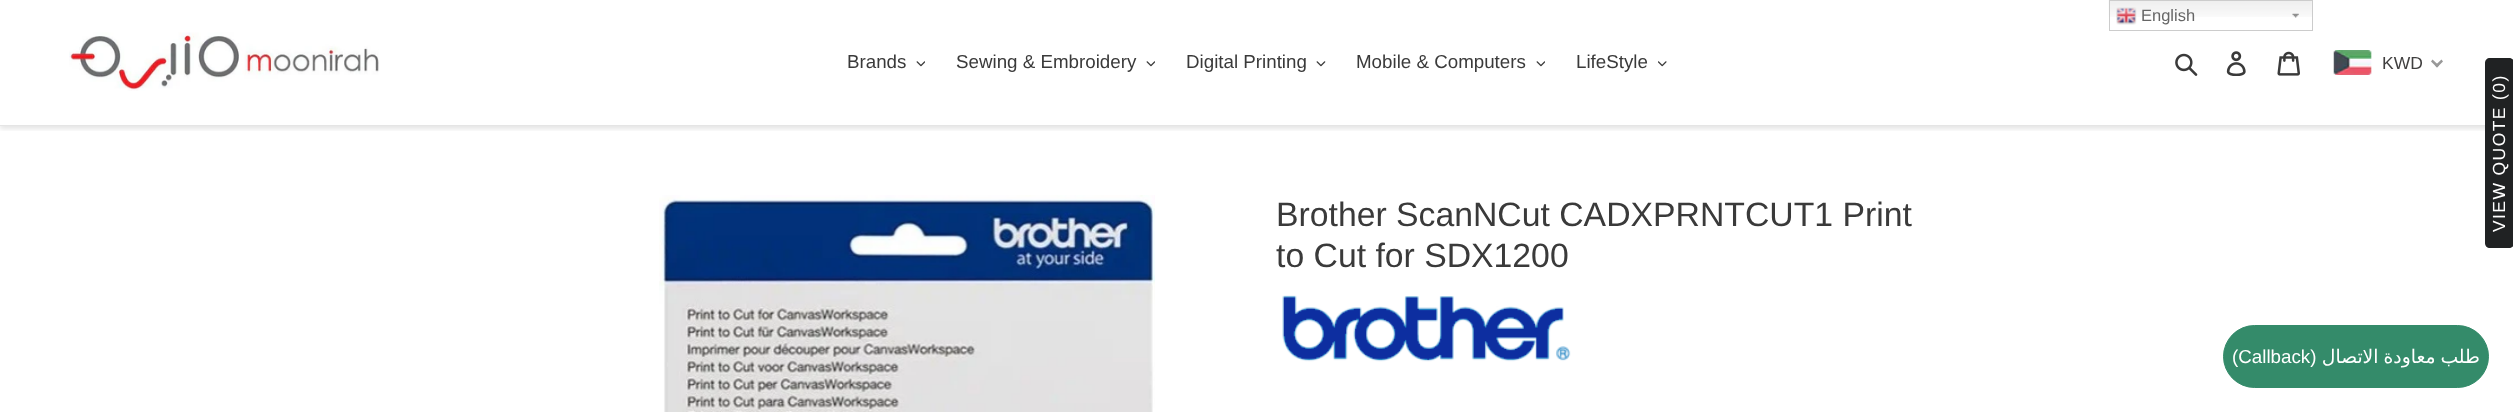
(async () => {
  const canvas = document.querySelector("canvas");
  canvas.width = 2513;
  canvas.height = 412;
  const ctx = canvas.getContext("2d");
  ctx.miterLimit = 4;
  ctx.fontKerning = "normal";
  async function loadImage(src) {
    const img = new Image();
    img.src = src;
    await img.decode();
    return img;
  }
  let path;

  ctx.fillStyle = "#ffffff";
  ctx.fillRect(0, 0, 2513, 412);
  ctx.save();
  ctx.beginPath();
  ctx.rect(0, 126, 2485, 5);
  ctx.clip();
  ctx.fillStyle = "rgba(0, 0, 0, 0.1)";
  ctx.filter = "blur(2.5px)";
  ctx.beginPath();
  ctx.rect(0, 3, 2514, 126);
  ctx.fill();
  ctx.filter = "none";
  ctx.restore();
  ctx.drawImage(await loadImage("img/1.png"), 2108, 0, 204, 17);
  ctx.drawImage(await loadImage("img/2.png"), 2292, 13, 7, 5);
  ctx.strokeStyle = "#cccccc";
  ctx.strokeRect(2109.5, 0.5, 203, 30);
  ctx.drawImage(await loadImage("img/3.png"), 2116, 7, 21, 18);
  ctx.fillStyle = "#e5e5e5";
  ctx.fillRect(0, 125, 2485, 1);
  ctx.drawImage(await loadImage("img/4.png"), 69, 32, 310, 59);
  ctx.drawImage(await loadImage("img/5.png"), 916, 61, 9, 6);
  ctx.drawImage(await loadImage("img/5.png"), 1146, 61, 9, 6);
  ctx.drawImage(await loadImage("img/6.png"), 1316, 61, 10, 6);
  ctx.drawImage(await loadImage("img/5.png"), 1536, 61, 9, 6);
  ctx.drawImage(await loadImage("img/7.png"), 1658, 61, 9, 6);
  ctx.drawImage(await loadImage("img/8.png"), 2175, 53, 23, 23);
  ctx.drawImage(await loadImage("img/9.png"), 2226, 51, 20, 25);
  ctx.drawImage(await loadImage("img/10.png"), 2277, 51, 23, 25);
  ctx.drawImage(await loadImage("img/11.png"), 2333, 50, 39, 25);
  ctx.fillStyle = "#999999";
  path = new Path2D("M2441.5 59.5L2443 61.5L2437 67.5L2435 65.5Z");
  ctx.fill(path);
  path = new Path2D("M2432.5 59.5L2439 65.5L2437 67.5L2431 61.5Z");
  ctx.fill(path);
  ctx.drawImage(await loadImage("img/12.png"), 659, 195, 496, 217);
  ctx.drawImage(await loadImage("img/13.png"), 1282, 295, 289, 67);
  ctx.fillStyle = "#202223";
  path = new Path2D("M2485 243V63C2485 60 2487 58 2490 58H2509C2512 58 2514 60 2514 63V243C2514 246 2512 248 2509 248H2490C2487 248 2485 246 2485 243Z");
  ctx.fill(path);
  ctx.fillStyle = "#348b6a";
  ctx.beginPath();
  ctx.roundRect(2223.5, 325.5, 265, 62, 31);
  ctx.fill();
  ctx.strokeStyle = "#348b6a";
  ctx.stroke();
  ctx.font = "16.5px Liberation Sans";
  ctx.fillStyle = "#666666";
  ctx.fillText("English", 2141, 21);
  ctx.font = "18.75px Liberation Sans";
  ctx.fillStyle = "#3a3a3a";
  for (const [text, x, y] of [
    ["Brands", 847, 68],
    ["Sewing & Embroidery", 956, 68],
    ["Digital Printing", 1186, 68],
    ["Mobile & Computers", 1356, 68],
    ["LifeStyle", 1576, 68],
  ]) {
    ctx.fillText(text, x, y);
  }
  ctx.font = "17.5px Liberation Sans";
  ctx.fillStyle = "#403f3f";
  ctx.fillText("KWD", 2382, 69);
  ctx.font = "33.75px Liberation Sans";
  ctx.fillStyle = "#3a3a3a";
  ctx.fillText("Brother ScanNCut CADXPRNTCUT1 Print", 1276, 226);
  ctx.fillText("to Cut for SDX1200", 1276, 267);
  ctx.letterSpacing = "1.4px";
  ctx.font = "17.5px Liberation Sans";
  ctx.fillStyle = "#ffffff";
  ctx.save();
  ctx.translate(2505, 232);
  ctx.rotate(-90 * Math.PI / 180);
  ctx.fillText("VIEW QUOTE (0)", 0, 0);
  ctx.restore();
  ctx.letterSpacing = "0px";
  ctx.font = "18.75px Liberation Sans";
  ctx.fillText("(Callback)", 2232, 363);
  ctx.wordSpacing = "-1px";
  ctx.direction = "rtl";
  ctx.font = "18.75px DejaVu Sans";
  ctx.fillText("طلب معاودة الاتصال", 2480, 363);
})();
